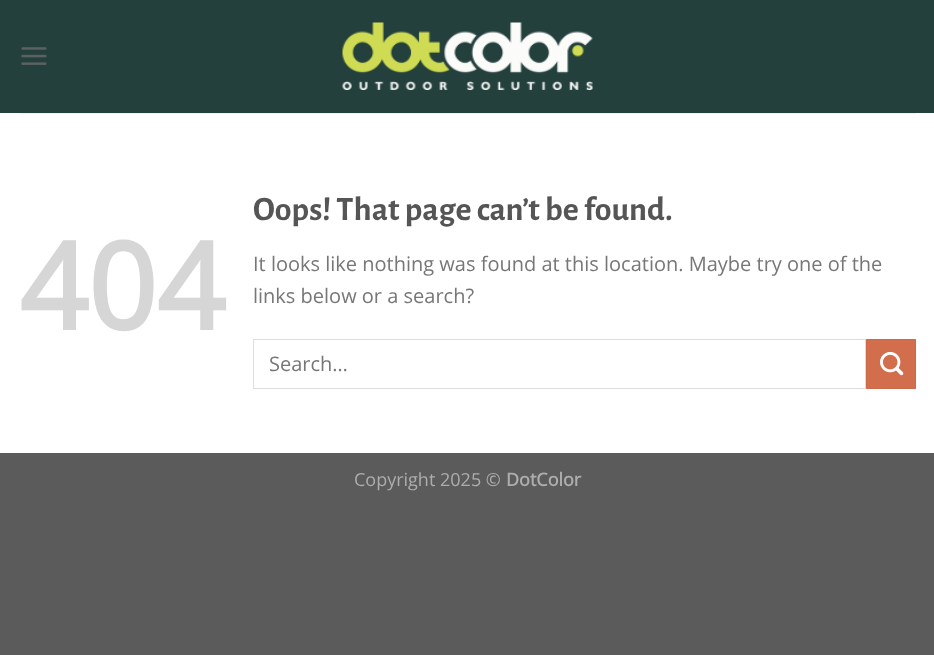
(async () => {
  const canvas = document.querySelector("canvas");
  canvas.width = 934;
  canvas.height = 655;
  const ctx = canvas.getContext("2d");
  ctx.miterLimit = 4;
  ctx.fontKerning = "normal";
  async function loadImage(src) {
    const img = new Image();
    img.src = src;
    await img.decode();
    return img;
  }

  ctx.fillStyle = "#5b5b5b";
  ctx.fillRect(0, 0, 934, 655);
  ctx.fillStyle = "#ffffff";
  ctx.fillRect(0, 113, 934, 340);
  ctx.fillStyle = "#23403d";
  ctx.fillRect(0, 0, 934, 113);
  ctx.drawImage(await loadImage("img/1.png"), 21, 47, 26, 18);
  ctx.drawImage(await loadImage("img/2.png"), 342, 22, 251, 68);
  ctx.fillStyle = "#f1f1f1";
  ctx.fillRect(19, 113, 897, 1);
  ctx.strokeStyle = "#dddddd";
  ctx.strokeRect(253.5, 339.5, 612, 49);
  ctx.fillStyle = "#d26e4b";
  ctx.beginPath();
  ctx.rect(866.5, 339.5, 49, 49);
  ctx.fill();
  ctx.strokeStyle = "#c86947";
  ctx.stroke();
  ctx.drawImage(await loadImage("img/3.png"), 880, 351, 24, 25);
  ctx.font = "bold 120px Open Sans";
  ctx.fillStyle = "#d6d6d6";
  ctx.fillText("404", 19, 330);
  ctx.font = "bold 34px Alegreya Sans";
  ctx.fillStyle = "#555555";
  ctx.fillText("Oops! That page can’t be found.", 253, 220);
  ctx.font = "20px Open Sans";
  ctx.fillStyle = "#777777";
  for (const [text, x, y] of [
    ["It looks like nothing was found at this location. Maybe try one of the", 253, 271],
    ["links below or a search?", 253, 303],
    ["Search…", 269, 371],
  ]) {
    ctx.fillText(text, x, y);
  }
  ctx.font = "18px Open Sans";
  ctx.fillStyle = "#adadad";
  ctx.fillText("Copyright 2025 ©", 354, 486);
  ctx.font = "bold 18px Open Sans";
  ctx.fillText("DotColor", 506, 486);
})();
